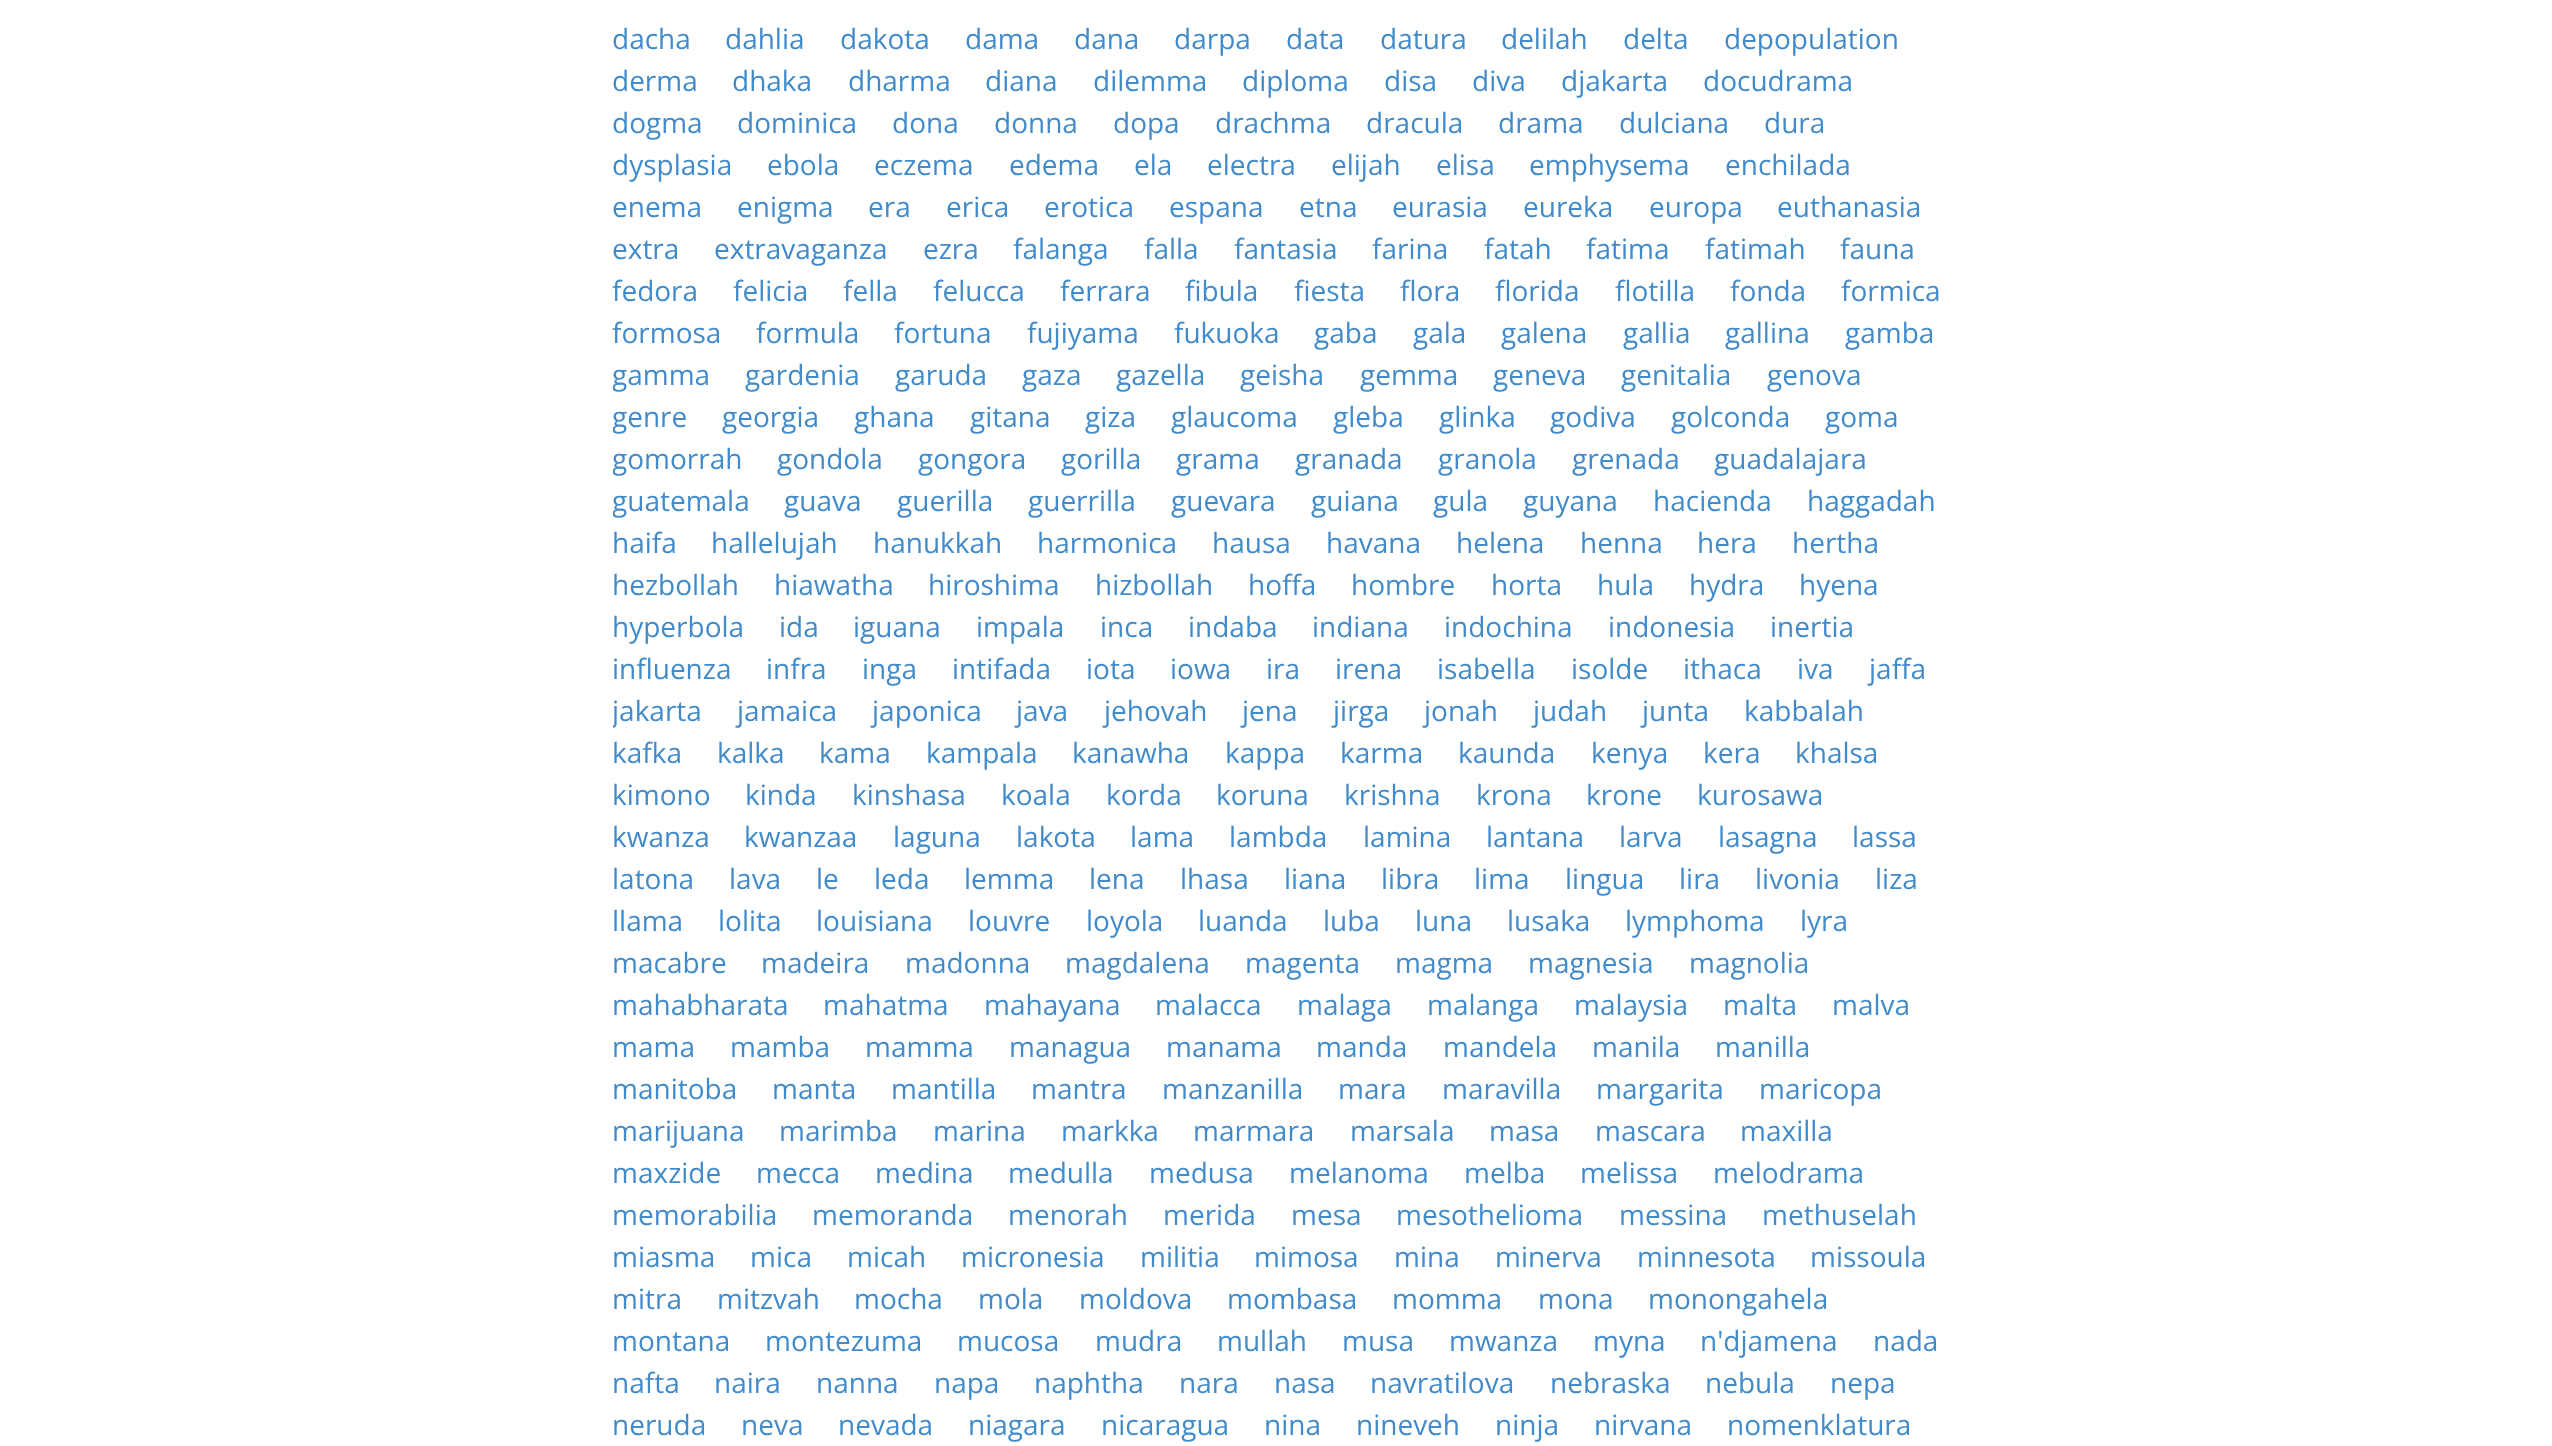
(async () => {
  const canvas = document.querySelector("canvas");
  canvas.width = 2552;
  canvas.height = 1446;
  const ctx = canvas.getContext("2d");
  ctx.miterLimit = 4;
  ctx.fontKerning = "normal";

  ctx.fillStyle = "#ffffff";
  ctx.fillRect(0, 0, 2552, 1446);
  ctx.font = "28px Open Sans";
  ctx.fillStyle = "#428bca";
  for (const [text, x, y] of [
    ["dacha", 612, 49],
    ["dahlia", 725, 49],
    ["dakota", 840, 49],
    ["dama", 965, 49],
    ["dana", 1074, 49],
    ["darpa", 1174, 49],
    ["data", 1286, 49],
    ["datura", 1380, 49],
    ["delilah", 1501, 49],
    ["delta", 1623, 49],
    ["depopulation", 1724, 49],
    ["derma", 612, 91],
    ["dhaka", 732, 91],
    ["dharma", 848, 91],
    ["diana", 985, 91],
    ["dilemma", 1093, 91],
    ["diploma", 1242, 91],
    ["disa", 1384, 91],
    ["diva", 1472, 91],
    ["djakarta", 1561, 91],
    ["docudrama", 1703, 91],
    ["dogma", 612, 133],
    ["dominica", 737, 133],
    ["dona", 892, 133],
    ["donna", 994, 133],
    ["dopa", 1113, 133],
    ["drachma", 1215, 133],
    ["dracula", 1366, 133],
    ["drama", 1498, 133],
    ["dulciana", 1619, 133],
    ["dura", 1764, 133],
    ["dysplasia", 612, 175],
    ["ebola", 767, 175],
    ["eczema", 874, 175],
    ["edema", 1009, 175],
    ["ela", 1134, 175],
    ["electra", 1207, 175],
    ["elijah", 1331, 175],
    ["elisa", 1436, 175],
    ["emphysema", 1529, 175],
    ["enchilada", 1725, 175],
    ["enema", 612, 217],
    ["enigma", 737, 217],
    ["era", 868, 217],
    ["erica", 946, 217],
    ["erotica", 1044, 217],
    ["espana", 1169, 217],
    ["etna", 1299, 217],
    ["eurasia", 1392, 217],
    ["eureka", 1523, 217],
    ["europa", 1649, 217],
    ["euthanasia", 1777, 217],
    ["extra", 612, 259],
    ["extravaganza", 714, 259],
    ["ezra", 923, 259],
    ["falanga", 1013, 259],
    ["falla", 1144, 259],
    ["fantasia", 1234, 259],
    ["farina", 1372, 259],
    ["fatah", 1484, 259],
    ["fatima", 1586, 259],
    ["fatimah", 1705, 259],
    ["fauna", 1840, 259],
    ["fedora", 612, 301],
    ["felicia", 733, 301],
    ["fella", 843, 301],
    ["felucca", 933, 301],
    ["ferrara", 1060, 301],
    ["fibula", 1185, 301],
    ["fiesta", 1294, 301],
    ["flora", 1400, 301],
    ["florida", 1495, 301],
    ["flotilla", 1615, 301],
    ["fonda", 1730, 301],
    ["formica", 1841, 301],
    ["formosa", 612, 343],
    ["formula", 756, 343],
    ["fortuna", 894, 343],
    ["fujiyama", 1027, 343],
    ["fukuoka", 1174, 343],
    ["gaba", 1314, 343],
    ["gala", 1413, 343],
    ["galena", 1501, 343],
    ["gallia", 1623, 343],
    ["gallina", 1725, 343],
    ["gamba", 1845, 343],
  ]) {
    ctx.fillText(text, x, y);
  }
  ctx.save();
  ctx.beginPath();
  ctx.rect(613, 0, 1365, 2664);
  ctx.clip();
  ctx.fillText("gamma", 612, 385);
  ctx.restore();
  for (const [text, x, y] of [
    ["gardenia", 745, 385],
    ["garuda", 895, 385],
    ["gaza", 1022, 385],
    ["gazella", 1116, 385],
    ["geisha", 1240, 385],
    ["gemma", 1360, 385],
    ["geneva", 1493, 385],
    ["genitalia", 1621, 385],
    ["genova", 1767, 385],
  ]) {
    ctx.fillText(text, x, y);
  }
  ctx.save();
  ctx.beginPath();
  ctx.rect(613, 0, 1365, 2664);
  ctx.clip();
  ctx.fillText("genre", 612, 427);
  ctx.restore();
  for (const [text, x, y] of [
    ["georgia", 722, 427],
    ["ghana", 854, 427],
    ["gitana", 970, 427],
    ["giza", 1085, 427],
    ["glaucoma", 1171, 427],
    ["gleba", 1333, 427],
    ["glinka", 1439, 427],
    ["godiva", 1550, 427],
    ["golconda", 1671, 427],
    ["goma", 1825, 427],
  ]) {
    ctx.fillText(text, x, y);
  }
  ctx.save();
  ctx.beginPath();
  ctx.rect(613, 0, 1365, 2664);
  ctx.clip();
  ctx.fillText("gomorrah", 612, 469);
  ctx.restore();
  for (const [text, x, y] of [
    ["gondola", 777, 469],
    ["gongora", 918, 469],
    ["gorilla", 1061, 469],
    ["grama", 1176, 469],
    ["granada", 1295, 469],
    ["granola", 1438, 469],
    ["grenada", 1572, 469],
    ["guadalajara", 1714, 469],
  ]) {
    ctx.fillText(text, x, y);
  }
  ctx.save();
  ctx.beginPath();
  ctx.rect(613, 0, 1365, 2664);
  ctx.clip();
  ctx.fillText("guatemala", 612, 511);
  ctx.restore();
  for (const [text, x, y] of [
    ["guava", 784, 511],
    ["guerilla", 897, 511],
    ["guerrilla", 1028, 511],
    ["guevara", 1171, 511],
    ["guiana", 1311, 511],
    ["gula", 1433, 511],
    ["guyana", 1523, 511],
    ["hacienda", 1653, 511],
    ["haggadah", 1807, 511],
    ["haifa", 612, 553],
    ["hallelujah", 711, 553],
    ["hanukkah", 873, 553],
    ["harmonica", 1037, 553],
    ["hausa", 1212, 553],
    ["havana", 1326, 553],
    ["helena", 1456, 553],
    ["henna", 1580, 553],
    ["hera", 1697, 553],
    ["hertha", 1792, 553],
    ["hezbollah", 612, 595],
    ["hiawatha", 774, 595],
    ["hiroshima", 928, 595],
    ["hizbollah", 1095, 595],
    ["hoffa", 1248, 595],
    ["hombre", 1351, 595],
    ["horta", 1491, 595],
    ["hula", 1597, 595],
    ["hydra", 1689, 595],
    ["hyena", 1799, 595],
    ["hyperbola", 612, 637],
    ["ida", 779, 637],
    ["iguana", 853, 637],
    ["impala", 976, 637],
    ["inca", 1100, 637],
    ["indaba", 1188, 637],
    ["indiana", 1312, 637],
    ["indochina", 1444, 637],
    ["indonesia", 1608, 637],
    ["inertia", 1770, 637],
    ["influenza", 612, 679],
    ["infra", 766, 679],
    ["inga", 862, 679],
    ["intifada", 952, 679],
    ["iota", 1086, 679],
    ["iowa", 1170, 679],
    ["ira", 1266, 679],
    ["irena", 1335, 679],
    ["isabella", 1437, 679],
    ["isolde", 1571, 679],
    ["ithaca", 1683, 679],
    ["iva", 1797, 679],
    ["jaffa", 1869, 679],
  ]) {
    ctx.fillText(text, x, y);
  }
  ctx.save();
  ctx.beginPath();
  ctx.rect(613, 0, 1365, 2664);
  ctx.clip();
  ctx.fillText("jakarta", 612, 721);
  ctx.restore();
  for (const [text, x, y] of [
    ["jamaica", 737, 721],
    ["japonica", 872, 721],
    ["java", 1016, 721],
    ["jehovah", 1104, 721],
    ["jena", 1242, 721],
    ["jirga", 1333, 721],
    ["jonah", 1424, 721],
    ["judah", 1533, 721],
    ["junta", 1642, 721],
    ["kabbalah", 1744, 721],
    ["kafka", 612, 763],
    ["kalka", 717, 763],
    ["kama", 819, 763],
    ["kampala", 926, 763],
    ["kanawha", 1072, 763],
    ["kappa", 1225, 763],
    ["karma", 1340, 763],
    ["kaunda", 1458, 763],
    ["kenya", 1591, 763],
    ["kera", 1703, 763],
    ["khalsa", 1795, 763],
    ["kimono", 612, 805],
    ["kinda", 745, 805],
    ["kinshasa", 852, 805],
    ["koala", 1001, 805],
    ["korda", 1106, 805],
    ["koruna", 1216, 805],
    ["krishna", 1344, 805],
    ["krona", 1476, 805],
    ["krone", 1586, 805],
    ["kurosawa", 1697, 805],
    ["kwanza", 612, 847],
    ["kwanzaa", 744, 847],
    ["laguna", 893, 847],
    ["lakota", 1016, 847],
    ["lama", 1130, 847],
    ["lambda", 1229, 847],
    ["lamina", 1363, 847],
    ["lantana", 1486, 847],
    ["larva", 1619, 847],
    ["lasagna", 1718, 847],
    ["lassa", 1852, 847],
    ["latona", 612, 889],
    ["lava", 729, 889],
    ["le", 816, 889],
    ["leda", 874, 889],
    ["lemma", 964, 889],
    ["lena", 1089, 889],
    ["lhasa", 1180, 889],
    ["liana", 1284, 889],
    ["libra", 1381, 889],
    ["lima", 1474, 889],
    ["lingua", 1565, 889],
    ["lira", 1679, 889],
    ["livonia", 1755, 889],
    ["liza", 1875, 889],
    ["llama", 612, 931],
    ["lolita", 718, 931],
    ["louisiana", 816, 931],
    ["louvre", 968, 931],
    ["loyola", 1086, 931],
    ["luanda", 1198, 931],
    ["luba", 1323, 931],
    ["luna", 1415, 931],
    ["lusaka", 1507, 931],
    ["lymphoma", 1625, 931],
    ["lyra", 1800, 931],
    ["macabre", 612, 973],
    ["madeira", 761, 973],
    ["madonna", 905, 973],
    ["magdalena", 1065, 973],
    ["magenta", 1245, 973],
    ["magma", 1395, 973],
    ["magnesia", 1528, 973],
    ["magnolia", 1689, 973],
    ["mahabharata", 612, 1015],
    ["mahatma", 823, 1015],
    ["mahayana", 984, 1015],
    ["malacca", 1155, 1015],
    ["malaga", 1297, 1015],
    ["malanga", 1427, 1015],
    ["malaysia", 1574, 1015],
    ["malta", 1723, 1015],
    ["malva", 1832, 1015],
    ["mama", 612, 1057],
    ["mamba", 730, 1057],
    ["mamma", 865, 1057],
    ["managua", 1009, 1057],
    ["manama", 1166, 1057],
    ["manda", 1316, 1057],
    ["mandela", 1443, 1057],
    ["manila", 1592, 1057],
    ["manilla", 1715, 1057],
    ["manitoba", 612, 1099],
    ["manta", 772, 1099],
    ["mantilla", 891, 1099],
    ["mantra", 1031, 1099],
    ["manzanilla", 1162, 1099],
    ["mara", 1338, 1099],
    ["maravilla", 1442, 1099],
    ["margarita", 1596, 1099],
    ["maricopa", 1759, 1099],
    ["marijuana", 612, 1141],
    ["marimba", 779, 1141],
    ["marina", 933, 1141],
    ["markka", 1061, 1141],
    ["marmara", 1193, 1141],
    ["marsala", 1350, 1141],
    ["masa", 1489, 1141],
    ["mascara", 1595, 1141],
    ["maxilla", 1740, 1141],
    ["maxzide", 612, 1183],
    ["mecca", 756, 1183],
    ["medina", 875, 1183],
    ["medulla", 1008, 1183],
    ["medusa", 1149, 1183],
    ["melanoma", 1289, 1183],
    ["melba", 1464, 1183],
    ["melissa", 1580, 1183],
    ["melodrama", 1713, 1183],
    ["memorabilia", 612, 1225],
    ["memoranda", 812, 1225],
    ["menorah", 1008, 1225],
    ["merida", 1163, 1225],
    ["mesa", 1291, 1225],
    ["mesothelioma", 1396, 1225],
    ["messina", 1619, 1225],
    ["methuselah", 1762, 1225],
    ["miasma", 612, 1267],
    ["mica", 750, 1267],
    ["micah", 847, 1267],
    ["micronesia", 961, 1267],
    ["militia", 1140, 1267],
    ["mimosa", 1254, 1267],
    ["mina", 1394, 1267],
    ["minerva", 1495, 1267],
    ["minnesota", 1637, 1267],
    ["missoula", 1810, 1267],
    ["mitra", 612, 1309],
    ["mitzvah", 717, 1309],
    ["mocha", 854, 1309],
    ["mola", 978, 1309],
    ["moldova", 1079, 1309],
    ["mombasa", 1227, 1309],
    ["momma", 1392, 1309],
    ["mona", 1538, 1309],
    ["monongahela", 1648, 1309],
    ["montana", 612, 1351],
    ["montezuma", 765, 1351],
    ["mucosa", 957, 1351],
    ["mudra", 1095, 1351],
    ["mullah", 1217, 1351],
    ["musa", 1342, 1351],
    ["mwanza", 1449, 1351],
    ["myna", 1593, 1351],
    ["n'djamena", 1700, 1351],
    ["nada", 1873, 1351],
    ["nafta", 612, 1393],
    ["naira", 714, 1393],
    ["nanna", 816, 1393],
    ["napa", 934, 1393],
    ["naphtha", 1034, 1393],
    ["nara", 1179, 1393],
    ["nasa", 1274, 1393],
    ["navratilova", 1370, 1393],
    ["nebraska", 1550, 1393],
    ["nebula", 1705, 1393],
    ["nepa", 1830, 1393],
    ["neruda", 612, 1435],
    ["neva", 741, 1435],
    ["nevada", 838, 1435],
    ["niagara", 968, 1435],
    ["nicaragua", 1101, 1435],
    ["nina", 1264, 1435],
    ["nineveh", 1356, 1435],
    ["ninja", 1495, 1435],
    ["nirvana", 1594, 1435],
    ["nomenklatura", 1727, 1435],
  ]) {
    ctx.fillText(text, x, y);
  }
})();
